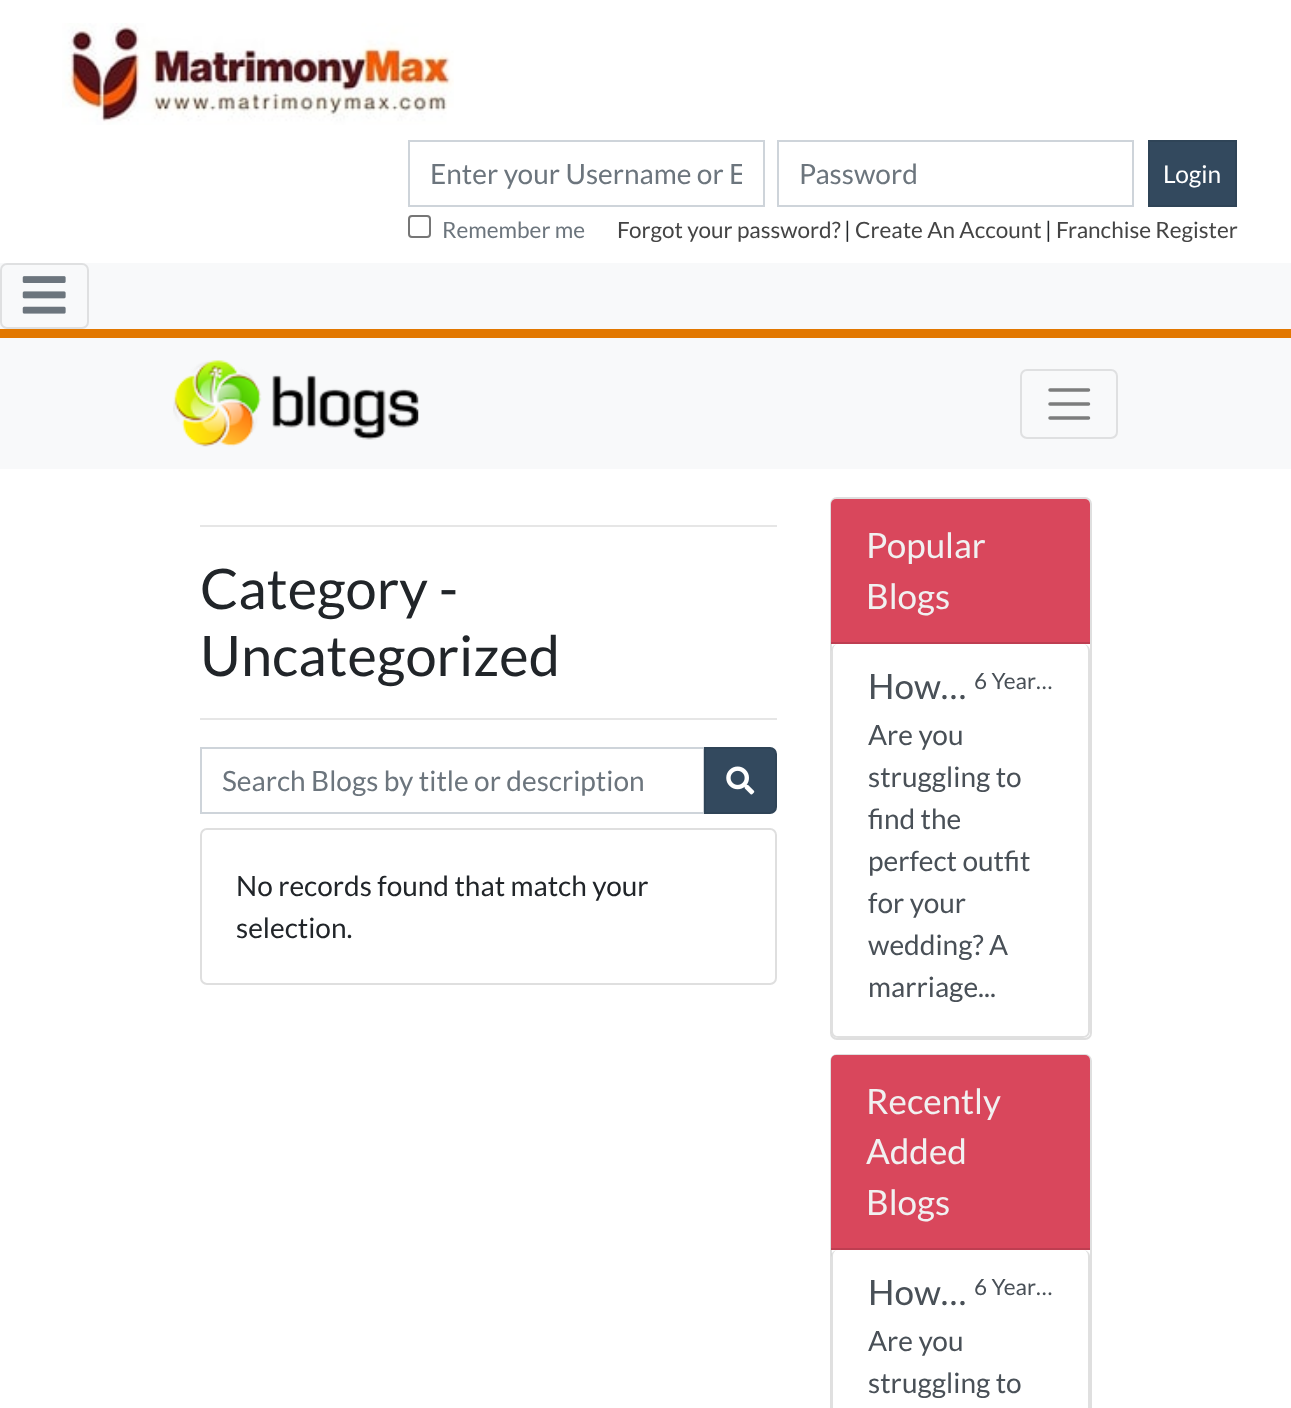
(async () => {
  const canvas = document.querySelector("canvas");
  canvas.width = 1291;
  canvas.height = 1408;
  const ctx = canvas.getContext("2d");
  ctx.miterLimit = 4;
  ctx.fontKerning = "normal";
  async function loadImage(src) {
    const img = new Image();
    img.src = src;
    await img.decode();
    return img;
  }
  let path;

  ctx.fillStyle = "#ffffff";
  ctx.fillRect(0, 0, 1291, 1408);
  ctx.drawImage(await loadImage("img/1.png"), 62, 23, 392, 102);
  ctx.strokeStyle = "#ced4da";
  ctx.lineWidth = 2;
  ctx.strokeRect(409, 141, 355, 65);
  ctx.strokeRect(778, 141, 355, 65);
  ctx.fillStyle = "#33495e";
  ctx.beginPath();
  ctx.rect(1149, 141, 87, 65);
  ctx.fill();
  ctx.strokeStyle = "#2f4457";
  ctx.stroke();
  ctx.beginPath();
  ctx.roundRect(409, 216, 21, 21, 3);
  ctx.strokeStyle = "#767676";
  ctx.stroke();
  ctx.fillStyle = "#f8f9fa";
  ctx.fillRect(0, 263, 1291, 66);
  ctx.fillStyle = "#e27800";
  ctx.fillRect(0, 329, 1291, 9);
  ctx.beginPath();
  ctx.roundRect(1, 264, 87, 64, 6);
  ctx.strokeStyle = "#dfe0e1";
  ctx.stroke();
  ctx.drawImage(await loadImage("img/2.png"), 22, 276, 44, 38);
  ctx.fillStyle = "#f8f9fa";
  ctx.fillRect(0, 338, 1291, 131);
  ctx.drawImage(await loadImage("img/3.png"), 173, 360, 246, 87);
  ctx.beginPath();
  ctx.roundRect(1021, 370, 96, 68, 6);
  ctx.stroke();
  path = new Path2D("M1050 390H1088.5M1050 404H1088.5M1050 418H1088.5");
  ctx.strokeStyle = "#7c7d7d";
  ctx.lineWidth = 3.5;
  ctx.lineCap = "round";
  ctx.stroke(path);
  ctx.fillStyle = "#e6e6e6";
  ctx.fillRect(200, 525, 577, 2);
  ctx.fillRect(200, 718, 577, 2);
  ctx.strokeStyle = "#ced4da";
  ctx.lineWidth = 2;
  ctx.strokeRect(201, 748, 503, 65);
  ctx.fillStyle = "#33495e";
  ctx.beginPath();
  ctx.roundRect(705, 748, 71, 65, [0, 6, 6, 0]);
  ctx.fill();
  ctx.strokeStyle = "#2f4457";
  ctx.stroke();
  ctx.drawImage(await loadImage("img/4.png"), 726, 766, 29, 29);
  ctx.beginPath();
  ctx.roundRect(201, 829, 575, 155, 6);
  ctx.strokeStyle = "#dfdfdf";
  ctx.stroke();
  ctx.beginPath();
  ctx.roundRect(831, 498, 260, 541, 6);
  ctx.stroke();
  ctx.fillStyle = "#d9475c";
  ctx.beginPath();
  ctx.roundRect(831, 499, 259, 145, [5, 5, 0, 0]);
  ctx.fill();
  ctx.fillStyle = "#be3e51";
  ctx.fillRect(831, 642, 259, 2);
  ctx.fillStyle = "#ffffff";
  ctx.beginPath();
  ctx.roundRect(831, 644, 259, 394, 7);
  ctx.fill();
  ctx.fillStyle = "rgba(0, 0, 0, 0.12)";
  path = new Path2D("M838 644H1083C1087 644 1090 647 1090 651V1031C1090 1035 1087 1038 1083 1038H838C834 1038 831 1035 831 1031V651C831 647 834 644 838 644ZM838 644H1083C1086 644 1088 647 1088 651V1031C1088 1034 1086 1036 1083 1036H838C835 1036 833 1034 833 1031V651C833 647 835 644 838 644Z");
  ctx.fill(path, "evenodd");
  ctx.beginPath();
  ctx.roundRect(831, 1055, 260, 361, 6);
  ctx.stroke();
  ctx.fillStyle = "#d9475c";
  ctx.beginPath();
  ctx.roundRect(831, 1055, 259, 195, [5, 5, 0, 0]);
  ctx.fill();
  ctx.fillStyle = "#be3e51";
  ctx.fillRect(831, 1248, 259, 2);
  ctx.fillStyle = "#ffffff";
  ctx.beginPath();
  ctx.roundRect(831, 1250, 259, 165, 7);
  ctx.fill();
  ctx.fillStyle = "rgba(0, 0, 0, 0.12)";
  path = new Path2D("M838 1250H1083C1087 1250 1090 1253 1090 1256V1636C1090 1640 1087 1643 1083 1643H838C834 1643 831 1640 831 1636V1256C831 1253 834 1250 838 1250ZM838 1250H1083C1086 1250 1088 1253 1088 1256V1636C1088 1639 1086 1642 1083 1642H838C835 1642 833 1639 833 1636V1256C833 1253 835 1250 838 1250Z");
  ctx.fill(path, "evenodd");
  ctx.save();
  ctx.beginPath();
  ctx.rect(431, 156, 311, 33);
  ctx.clip();
  ctx.font = "28px Lato";
  ctx.fillStyle = "#6c757d";
  ctx.fillText("Enter your Username or E", 430, 184);
  ctx.restore();
  ctx.font = "28px Lato";
  ctx.fillStyle = "#6c757d";
  ctx.fillText("Password", 799, 184);
  ctx.font = "24.5px Lato";
  ctx.fillStyle = "#ffffff";
  ctx.fillText("Login", 1163, 183);
  ctx.font = "22.5px Lato";
  ctx.fillStyle = "#6c757d";
  ctx.fillText("Remember me", 442, 238);
  ctx.fillStyle = "#444444";
  ctx.fillText("Forgot your password?", 617, 238);
  ctx.fillStyle = "#212529";
  ctx.fillText("|", 844, 238);
  ctx.fillStyle = "#444444";
  ctx.fillText("Create An Account", 855, 238);
  ctx.fillStyle = "#212529";
  ctx.fillText("|", 1045, 238);
  ctx.fillStyle = "#444444";
  ctx.fillText("Franchise Register", 1056, 238);
  ctx.font = "56px Lato";
  ctx.fillStyle = "#212529";
  ctx.fillText("Category -", 200, 609);
  ctx.fillText("Uncategorized", 200, 676);
  ctx.font = "28px Lato";
  ctx.fillStyle = "#6c757d";
  ctx.fillText("Search Blogs by title or description", 222, 791);
  ctx.fillStyle = "#212529";
  ctx.fillText("No records found that match your", 236, 896);
  ctx.fillText("selection.", 236, 938);
  ctx.font = "35px Lato";
  ctx.fillStyle = "#f1f1f1";
  ctx.fillText("Popular", 866, 558);
  ctx.fillText("Blogs", 866, 609);
  ctx.fillStyle = "#495057";
  ctx.fillText("How…", 868, 699);
  ctx.font = "22.5px Lato";
  ctx.fillText("6 Year…", 974, 689);
  ctx.font = "28px Lato";
  for (const [text, x, y] of [
    ["Are you", 868, 745],
    ["struggling to", 868, 787],
    ["find the", 868, 829],
    ["perfect outfit", 868, 871],
    ["for your", 868, 913],
    ["wedding? A", 868, 955],
    ["marriage...", 868, 997],
  ]) {
    ctx.fillText(text, x, y);
  }
  ctx.font = "35px Lato";
  ctx.fillStyle = "#f1f1f1";
  for (const [text, x, y] of [
    ["Recently", 866, 1114],
    ["Added", 866, 1164],
    ["Blogs", 866, 1215],
  ]) {
    ctx.fillText(text, x, y);
  }
  ctx.fillStyle = "#495057";
  ctx.fillText("How…", 868, 1305);
  ctx.font = "22.5px Lato";
  ctx.fillText("6 Year…", 974, 1295);
  ctx.font = "28px Lato";
  ctx.fillText("Are you", 868, 1351);
  ctx.fillText("struggling to", 868, 1393);
})();
